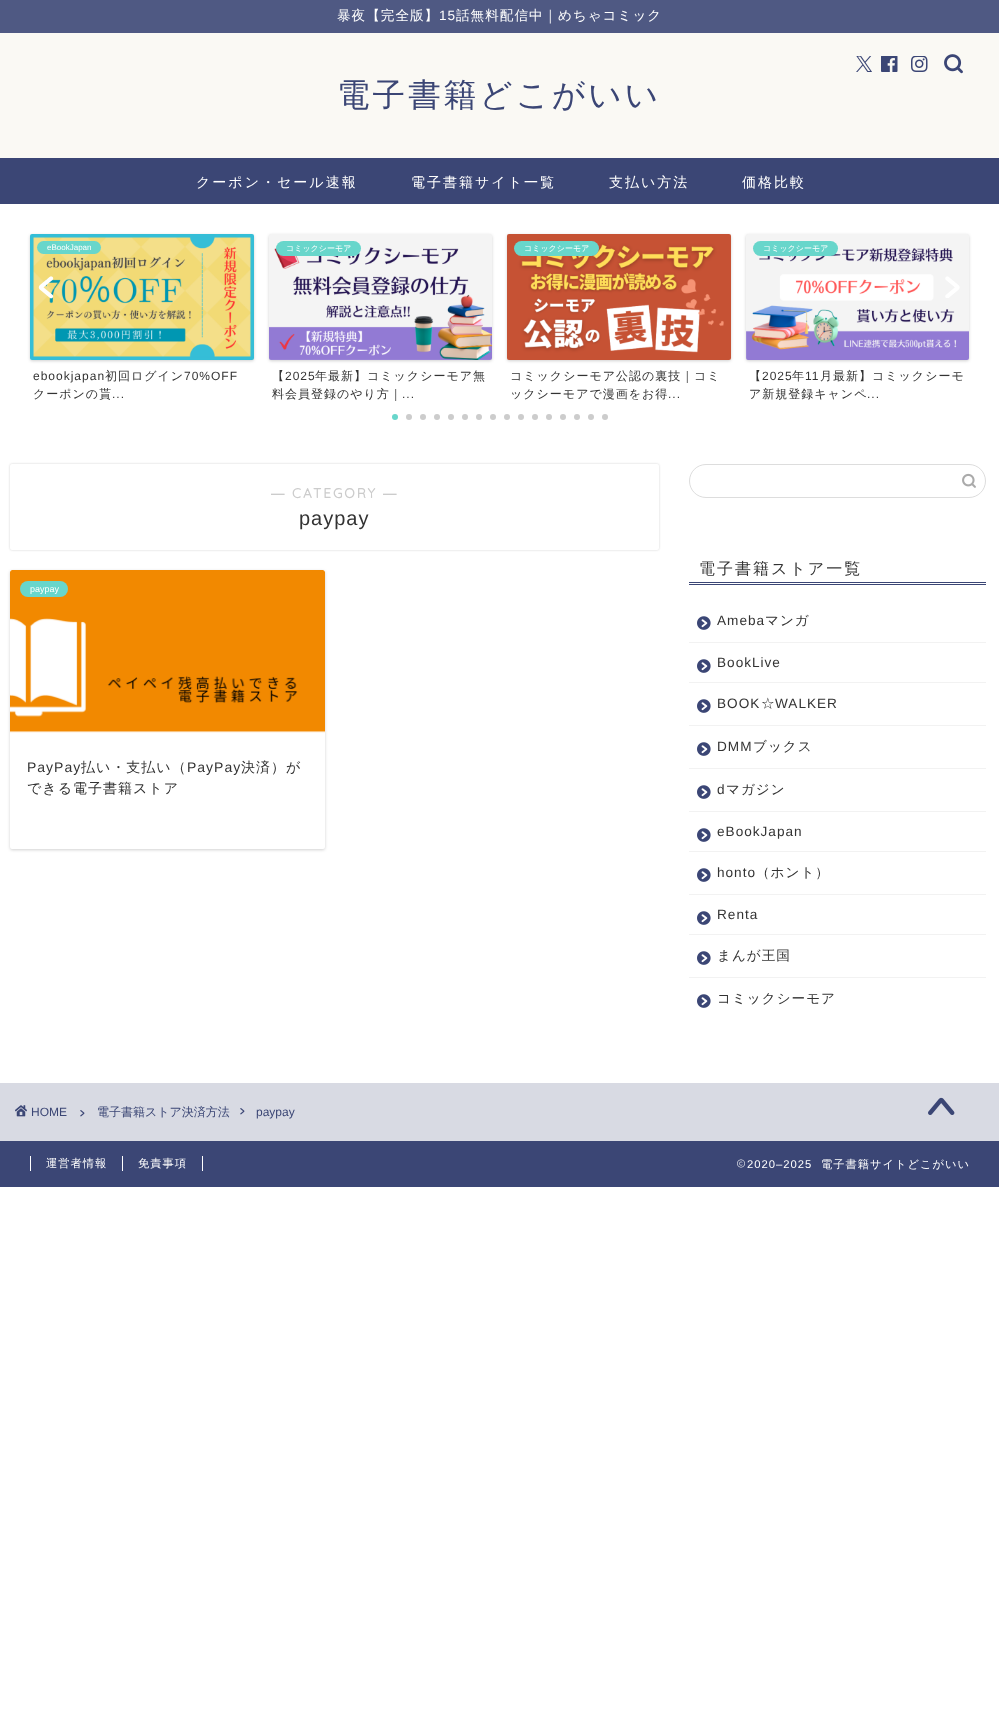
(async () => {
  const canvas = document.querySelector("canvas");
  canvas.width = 999;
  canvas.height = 1729;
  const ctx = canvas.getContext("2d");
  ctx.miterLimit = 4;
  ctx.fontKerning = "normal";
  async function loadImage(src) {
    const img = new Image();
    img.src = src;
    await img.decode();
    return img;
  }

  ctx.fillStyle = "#ffffff";
  ctx.fillRect(0, 0, 999, 1729);
  ctx.fillStyle = "#4f5983";
  ctx.fillRect(0, 0, 999, 33);
  ctx.fillStyle = "#faf9f4";
  ctx.fillRect(0, 33, 999, 125);
  ctx.drawImage(await loadImage("img/1.png"), 856, 56, 16, 16);
  ctx.drawImage(await loadImage("img/2.png"), 881, 56, 17, 16);
  ctx.drawImage(await loadImage("img/3.png"), 911, 56, 17, 16);
  ctx.drawImage(await loadImage("img/4.png"), 944, 54, 19, 20);
  ctx.fillStyle = "#3b4675";
  ctx.fillRect(0, 158, 999, 46);
  ctx.fillStyle = "rgba(0, 0, 0, 0.18)";
  ctx.filter = "blur(1.5px)";
  ctx.beginPath();
  ctx.roundRect(30, 235, 224, 126, 2);
  ctx.fill();
  ctx.filter = "none";
  ctx.drawImage(await loadImage("img/5.png"), 30, 234, 224, 126);
  ctx.fillStyle = "#68d6cb";
  ctx.beginPath();
  ctx.roundRect(37, 241, 64, 13, 6.5);
  ctx.fill();
  ctx.fillStyle = "rgba(0, 0, 0, 0.18)";
  ctx.filter = "blur(1.5px)";
  ctx.beginPath();
  ctx.roundRect(269, 235, 223, 126, 2);
  ctx.fill();
  ctx.filter = "none";
  ctx.drawImage(await loadImage("img/6.png"), 269, 234, 223, 126);
  ctx.fillStyle = "#68d6cb";
  ctx.beginPath();
  ctx.roundRect(276, 241, 85, 15, 7.5);
  ctx.fill();
  ctx.fillStyle = "rgba(0, 0, 0, 0.18)";
  ctx.filter = "blur(1.5px)";
  ctx.beginPath();
  ctx.roundRect(507, 235, 224, 126, 2);
  ctx.fill();
  ctx.filter = "none";
  ctx.drawImage(await loadImage("img/7.png"), 507, 234, 224, 126);
  ctx.fillStyle = "#68d6cb";
  ctx.beginPath();
  ctx.roundRect(514, 241, 85, 15, 7.5);
  ctx.fill();
  ctx.fillStyle = "rgba(0, 0, 0, 0.18)";
  ctx.filter = "blur(1.5px)";
  ctx.beginPath();
  ctx.roundRect(746, 235, 223, 126, 2);
  ctx.fill();
  ctx.filter = "none";
  ctx.drawImage(await loadImage("img/8.png"), 746, 234, 223, 126);
  ctx.fillStyle = "#68d6cb";
  ctx.beginPath();
  ctx.roundRect(753, 241, 85, 15, 7.5);
  ctx.fill();
  ctx.drawImage(await loadImage("img/9.png"), 38, 276, 16, 23);
  ctx.drawImage(await loadImage("img/10.png"), 945, 276, 15, 22);
  ctx.beginPath();
  ctx.arc(395, 417, 3, 0, Math.PI * 2);
  ctx.fill();
  ctx.fillStyle = "#cccccc";
  ctx.beginPath();
  ctx.arc(409, 417, 3, 0, Math.PI * 2);
  ctx.fill();
  ctx.beginPath();
  ctx.arc(423, 417, 3, 0, Math.PI * 2);
  ctx.fill();
  ctx.beginPath();
  ctx.arc(437, 417, 3, 0, Math.PI * 2);
  ctx.fill();
  ctx.beginPath();
  ctx.arc(451, 417, 3, 0, Math.PI * 2);
  ctx.fill();
  ctx.beginPath();
  ctx.arc(465, 417, 3, 0, Math.PI * 2);
  ctx.fill();
  ctx.beginPath();
  ctx.arc(479, 417, 3, 0, Math.PI * 2);
  ctx.fill();
  ctx.beginPath();
  ctx.arc(493, 417, 3, 0, Math.PI * 2);
  ctx.fill();
  ctx.beginPath();
  ctx.arc(507, 417, 3, 0, Math.PI * 2);
  ctx.fill();
  ctx.beginPath();
  ctx.arc(521, 417, 3, 0, Math.PI * 2);
  ctx.fill();
  ctx.beginPath();
  ctx.arc(535, 417, 3, 0, Math.PI * 2);
  ctx.fill();
  ctx.beginPath();
  ctx.arc(549, 417, 3, 0, Math.PI * 2);
  ctx.fill();
  ctx.beginPath();
  ctx.arc(563, 417, 3, 0, Math.PI * 2);
  ctx.fill();
  ctx.beginPath();
  ctx.arc(577, 417, 3, 0, Math.PI * 2);
  ctx.fill();
  ctx.beginPath();
  ctx.arc(591, 417, 3, 0, Math.PI * 2);
  ctx.fill();
  ctx.beginPath();
  ctx.arc(605, 417, 3, 0, Math.PI * 2);
  ctx.fill();
  ctx.fillStyle = "rgba(0, 0, 0, 0.18)";
  ctx.filter = "blur(1px)";
  ctx.beginPath();
  ctx.roundRect(10, 464, 649, 86, 2);
  ctx.fill();
  ctx.filter = "none";
  ctx.fillStyle = "#ffffff";
  ctx.beginPath();
  ctx.roundRect(10, 464, 649, 86, 2);
  ctx.fill();
  ctx.fillStyle = "rgba(0, 0, 0, 0.18)";
  ctx.filter = "blur(1.5px)";
  ctx.beginPath();
  ctx.roundRect(10, 571, 315, 279, 2);
  ctx.fill();
  ctx.filter = "none";
  ctx.fillStyle = "#ffffff";
  ctx.beginPath();
  ctx.roundRect(10, 570, 315, 279, 2);
  ctx.fill();
  ctx.drawImage(await loadImage("img/11.png"), 10, 570, 315, 163);
  ctx.fillStyle = "#68d6cb";
  ctx.beginPath();
  ctx.roundRect(20, 581, 48, 16, 8);
  ctx.fill();
  ctx.beginPath();
  ctx.roundRect(689.5, 464.5, 296, 33, 16.5);
  ctx.strokeStyle = "#dddddd";
  ctx.stroke();
  ctx.drawImage(await loadImage("img/12.png"), 962, 473, 14, 15);
  for (const [x, y, w, h, color] of [
    [689, 582, 297, 1, "#3b4675"],
    [689, 584, 297, 1, "#3b4675"],
    [689, 642, 297, 1, "#f2f2f2"],
  ]) {
    ctx.fillStyle = color;
    ctx.fillRect(x, y, w, h);
  }
  ctx.drawImage(await loadImage("img/13.png"), 697, 616, 14, 14);
  ctx.fillRect(689, 682, 297, 1);
  ctx.drawImage(await loadImage("img/13.png"), 697, 659, 14, 14);
  ctx.fillRect(689, 725, 297, 1);
  ctx.drawImage(await loadImage("img/13.png"), 697, 699, 14, 14);
  ctx.fillRect(689, 768, 297, 1);
  ctx.drawImage(await loadImage("img/13.png"), 697, 742, 14, 14);
  ctx.fillRect(689, 811, 297, 1);
  ctx.drawImage(await loadImage("img/13.png"), 697, 785, 14, 14);
  ctx.fillRect(689, 851, 297, 1);
  ctx.drawImage(await loadImage("img/13.png"), 697, 828, 14, 14);
  ctx.fillRect(689, 894, 297, 1);
  ctx.drawImage(await loadImage("img/13.png"), 697, 868, 14, 14);
  ctx.fillRect(689, 934, 297, 1);
  ctx.drawImage(await loadImage("img/13.png"), 697, 911, 14, 14);
  ctx.fillRect(689, 977, 297, 1);
  ctx.drawImage(await loadImage("img/13.png"), 697, 951, 14, 14);
  ctx.drawImage(await loadImage("img/13.png"), 697, 994, 14, 14);
  ctx.fillStyle = "#d8dae3";
  ctx.fillRect(0, 1083, 999, 58);
  ctx.drawImage(await loadImage("img/14.png"), 15, 1105, 12, 12);
  ctx.drawImage(await loadImage("img/15.png"), 80, 1110, 5, 7);
  ctx.drawImage(await loadImage("img/15.png"), 240, 1108, 5, 7);
  ctx.drawImage(await loadImage("img/16.png"), 928, 1097, 27, 18);
  for (const [x, y, w, h, color] of [
    [0, 1141, 999, 46, "#3b4675"],
    [122, 1156, 1, 15, "#ffffff"],
    [30, 1156, 1, 15, "#ffffff"],
    [202, 1156, 1, 15, "#ffffff"],
  ]) {
    ctx.fillStyle = color;
    ctx.fillRect(x, y, w, h);
  }
  ctx.drawImage(await loadImage("img/17.png"), 737, 1159, 8, 9);
  ctx.letterSpacing = "1px";
  ctx.font = "500 13.6px WenQuanYi Zen Hei";
  ctx.fillText("暴夜【完全版】", 337, 20);
  ctx.font = "13.6px Liberation Sans";
  ctx.fillText("15", 439, 20);
  ctx.font = "500 13.6px WenQuanYi Zen Hei";
  ctx.fillText("話無料配信中｜めちゃコミック", 456, 20);
  ctx.letterSpacing = "3px";
  ctx.font = "500 32.6px WenQuanYi Zen Hei";
  ctx.fillStyle = "#3b4675";
  ctx.fillText("電子書籍どこがいい", 337, 106);
  ctx.letterSpacing = "2px";
  ctx.font = "500 14px WenQuanYi Zen Hei";
  ctx.fillStyle = "#ffffff";
  for (const [text, x, y] of [
    ["クーポン・セール速報", 196, 187],
    ["電子書籍サイト一覧", 411, 187],
    ["支払い方法", 609, 187],
    ["価格比較", 742, 187],
  ]) {
    ctx.fillText(text, x, y);
  }
  ctx.letterSpacing = "0px";
  ctx.font = "8px Liberation Sans";
  ctx.fillText("eBookJapan", 47, 250);
  ctx.letterSpacing = "1px";
  ctx.font = "12px Liberation Sans";
  ctx.fillStyle = "#333333";
  ctx.fillText("ebookjapan", 33, 380);
  ctx.font = "500 12px WenQuanYi Zen Hei";
  ctx.fillText("初回ログイン", 105, 380);
  ctx.font = "12px Liberation Sans";
  ctx.fillText("70%OFF", 184, 380);
  ctx.font = "500 12px WenQuanYi Zen Hei";
  ctx.fillText("クーポンの貰", 33, 398);
  ctx.font = "12px Liberation Sans";
  ctx.fillText("...", 112, 398);
  ctx.letterSpacing = "0px";
  ctx.font = "500 8px WenQuanYi Zen Hei";
  ctx.fillStyle = "#ffffff";
  ctx.fillText("コミックシーモア", 286, 251);
  ctx.letterSpacing = "1px";
  ctx.font = "500 12px WenQuanYi Zen Hei";
  ctx.fillStyle = "#333333";
  ctx.fillText("【", 272, 380);
  ctx.font = "12px Liberation Sans";
  ctx.fillText("2025", 285, 380);
  ctx.font = "500 12px WenQuanYi Zen Hei";
  ctx.fillText("年最新】コミックシーモア無", 315, 380);
  ctx.fillText("料会員登録のやり方｜", 272, 398);
  ctx.font = "12px Liberation Sans";
  ctx.fillText("...", 402, 398);
  ctx.letterSpacing = "0px";
  ctx.font = "500 8px WenQuanYi Zen Hei";
  ctx.fillStyle = "#ffffff";
  ctx.fillText("コミックシーモア", 524, 251);
  ctx.letterSpacing = "1px";
  ctx.font = "500 12px WenQuanYi Zen Hei";
  ctx.fillStyle = "#333333";
  ctx.fillText("コミックシーモア公認の裏技｜コミ", 510, 380);
  ctx.fillText("ックシーモアで漫画をお得", 510, 398);
  ctx.font = "12px Liberation Sans";
  ctx.fillText("...", 668, 398);
  ctx.letterSpacing = "0px";
  ctx.font = "500 8px WenQuanYi Zen Hei";
  ctx.fillStyle = "#ffffff";
  ctx.fillText("コミックシーモア", 763, 251);
  ctx.letterSpacing = "1px";
  ctx.font = "500 12px WenQuanYi Zen Hei";
  ctx.fillStyle = "#333333";
  ctx.fillText("【", 749, 380);
  ctx.font = "12px Liberation Sans";
  ctx.fillText("2025", 762, 380);
  ctx.font = "500 12px WenQuanYi Zen Hei";
  ctx.fillText("年", 792, 380);
  ctx.font = "12px Liberation Sans";
  ctx.fillText("11", 805, 380);
  ctx.font = "500 12px WenQuanYi Zen Hei";
  ctx.fillText("月最新】コミックシーモ", 820, 380);
  ctx.fillText("ア新規登録キャンペ", 749, 398);
  ctx.font = "12px Liberation Sans";
  ctx.fillText("...", 867, 398);
  ctx.letterSpacing = "2px";
  ctx.font = "bold 13.6px Liberation Sans";
  ctx.fillStyle = "#cccccc";
  ctx.fillText("―", 271, 498);
  ctx.font = "bold 13.6px Quicksand";
  ctx.fillText("CATEGORY", 292, 498);
  ctx.font = "bold 13.6px Liberation Sans";
  ctx.fillText("―", 383, 498);
  ctx.letterSpacing = "1px";
  ctx.font = "20px Liberation Sans";
  ctx.fillStyle = "#333333";
  ctx.fillText("paypay", 299, 525);
  ctx.letterSpacing = "0px";
  ctx.font = "9px Liberation Sans";
  ctx.fillStyle = "#ffffff";
  ctx.fillText("paypay", 30, 592);
  ctx.letterSpacing = "1px";
  ctx.font = "14px Liberation Sans";
  ctx.fillStyle = "#333333";
  ctx.fillText("PayPay", 27, 772);
  ctx.font = "500 14px WenQuanYi Zen Hei";
  ctx.fillText("払い・支払い（", 81, 772);
  ctx.font = "14px Liberation Sans";
  ctx.fillText("PayPay", 187, 772);
  ctx.font = "500 14px WenQuanYi Zen Hei";
  ctx.fillText("決済）が", 241, 772);
  ctx.fillText("できる電子書籍ストア", 27, 793);
  ctx.letterSpacing = "2px";
  ctx.font = "500 16px WenQuanYi Zen Hei";
  ctx.fillText("電子書籍ストア一覧", 699, 574);
  ctx.letterSpacing = "1px";
  ctx.font = "13.6px Liberation Sans";
  ctx.fillText("Ameba", 717, 625);
  ctx.font = "500 13.6px WenQuanYi Zen Hei";
  ctx.fillText("マンガ", 765, 625);
  ctx.font = "13.6px Liberation Sans";
  ctx.fillText("BookLive", 717, 667);
  ctx.fillText("BOOK", 717, 708);
  ctx.font = "500 13.6px WenQuanYi Zen Hei";
  ctx.fillText("☆", 761, 708);
  ctx.font = "13.6px Liberation Sans";
  ctx.fillText("WALKER", 775, 708);
  ctx.fillText("DMM", 717, 751);
  ctx.font = "500 13.6px WenQuanYi Zen Hei";
  ctx.fillText("ブックス", 753, 751);
  ctx.font = "13.6px Liberation Sans";
  ctx.fillText("d", 717, 794);
  ctx.font = "500 13.6px WenQuanYi Zen Hei";
  ctx.fillText("マガジン", 726, 794);
  ctx.font = "13.6px Liberation Sans";
  ctx.fillText("eBookJapan", 717, 836);
  ctx.fillText("honto", 717, 877);
  ctx.font = "500 13.6px WenQuanYi Zen Hei";
  ctx.fillText("（ホント）", 756, 877);
  ctx.font = "13.6px Liberation Sans";
  ctx.fillText("Renta", 717, 919);
  ctx.font = "500 13.6px WenQuanYi Zen Hei";
  ctx.fillText("まんが王国", 717, 960);
  ctx.fillText("コミックシーモア", 717, 1003);
  ctx.letterSpacing = "0px";
  ctx.font = "12px Liberation Sans";
  ctx.fillStyle = "#3b4675";
  ctx.fillText("HOME", 31, 1116);
  ctx.font = "500 12px WenQuanYi Zen Hei";
  ctx.fillText("電子書籍ストア決済方法", 97, 1116);
  ctx.font = "12px Liberation Sans";
  ctx.fillText("paypay", 256, 1116);
  ctx.letterSpacing = "1px";
  ctx.font = "500 11.25px WenQuanYi Zen Hei";
  ctx.fillStyle = "#ffffff";
  ctx.fillText("運営者情報", 46, 1167);
  ctx.fillText("免責事項", 138, 1167);
  ctx.font = "11.25px Liberation Sans";
  ctx.fillText("2020–2025", 747, 1168);
  ctx.font = "500 11.25px WenQuanYi Zen Hei";
  ctx.fillText("電子書籍サイトどこがいい", 821, 1168);
})();
